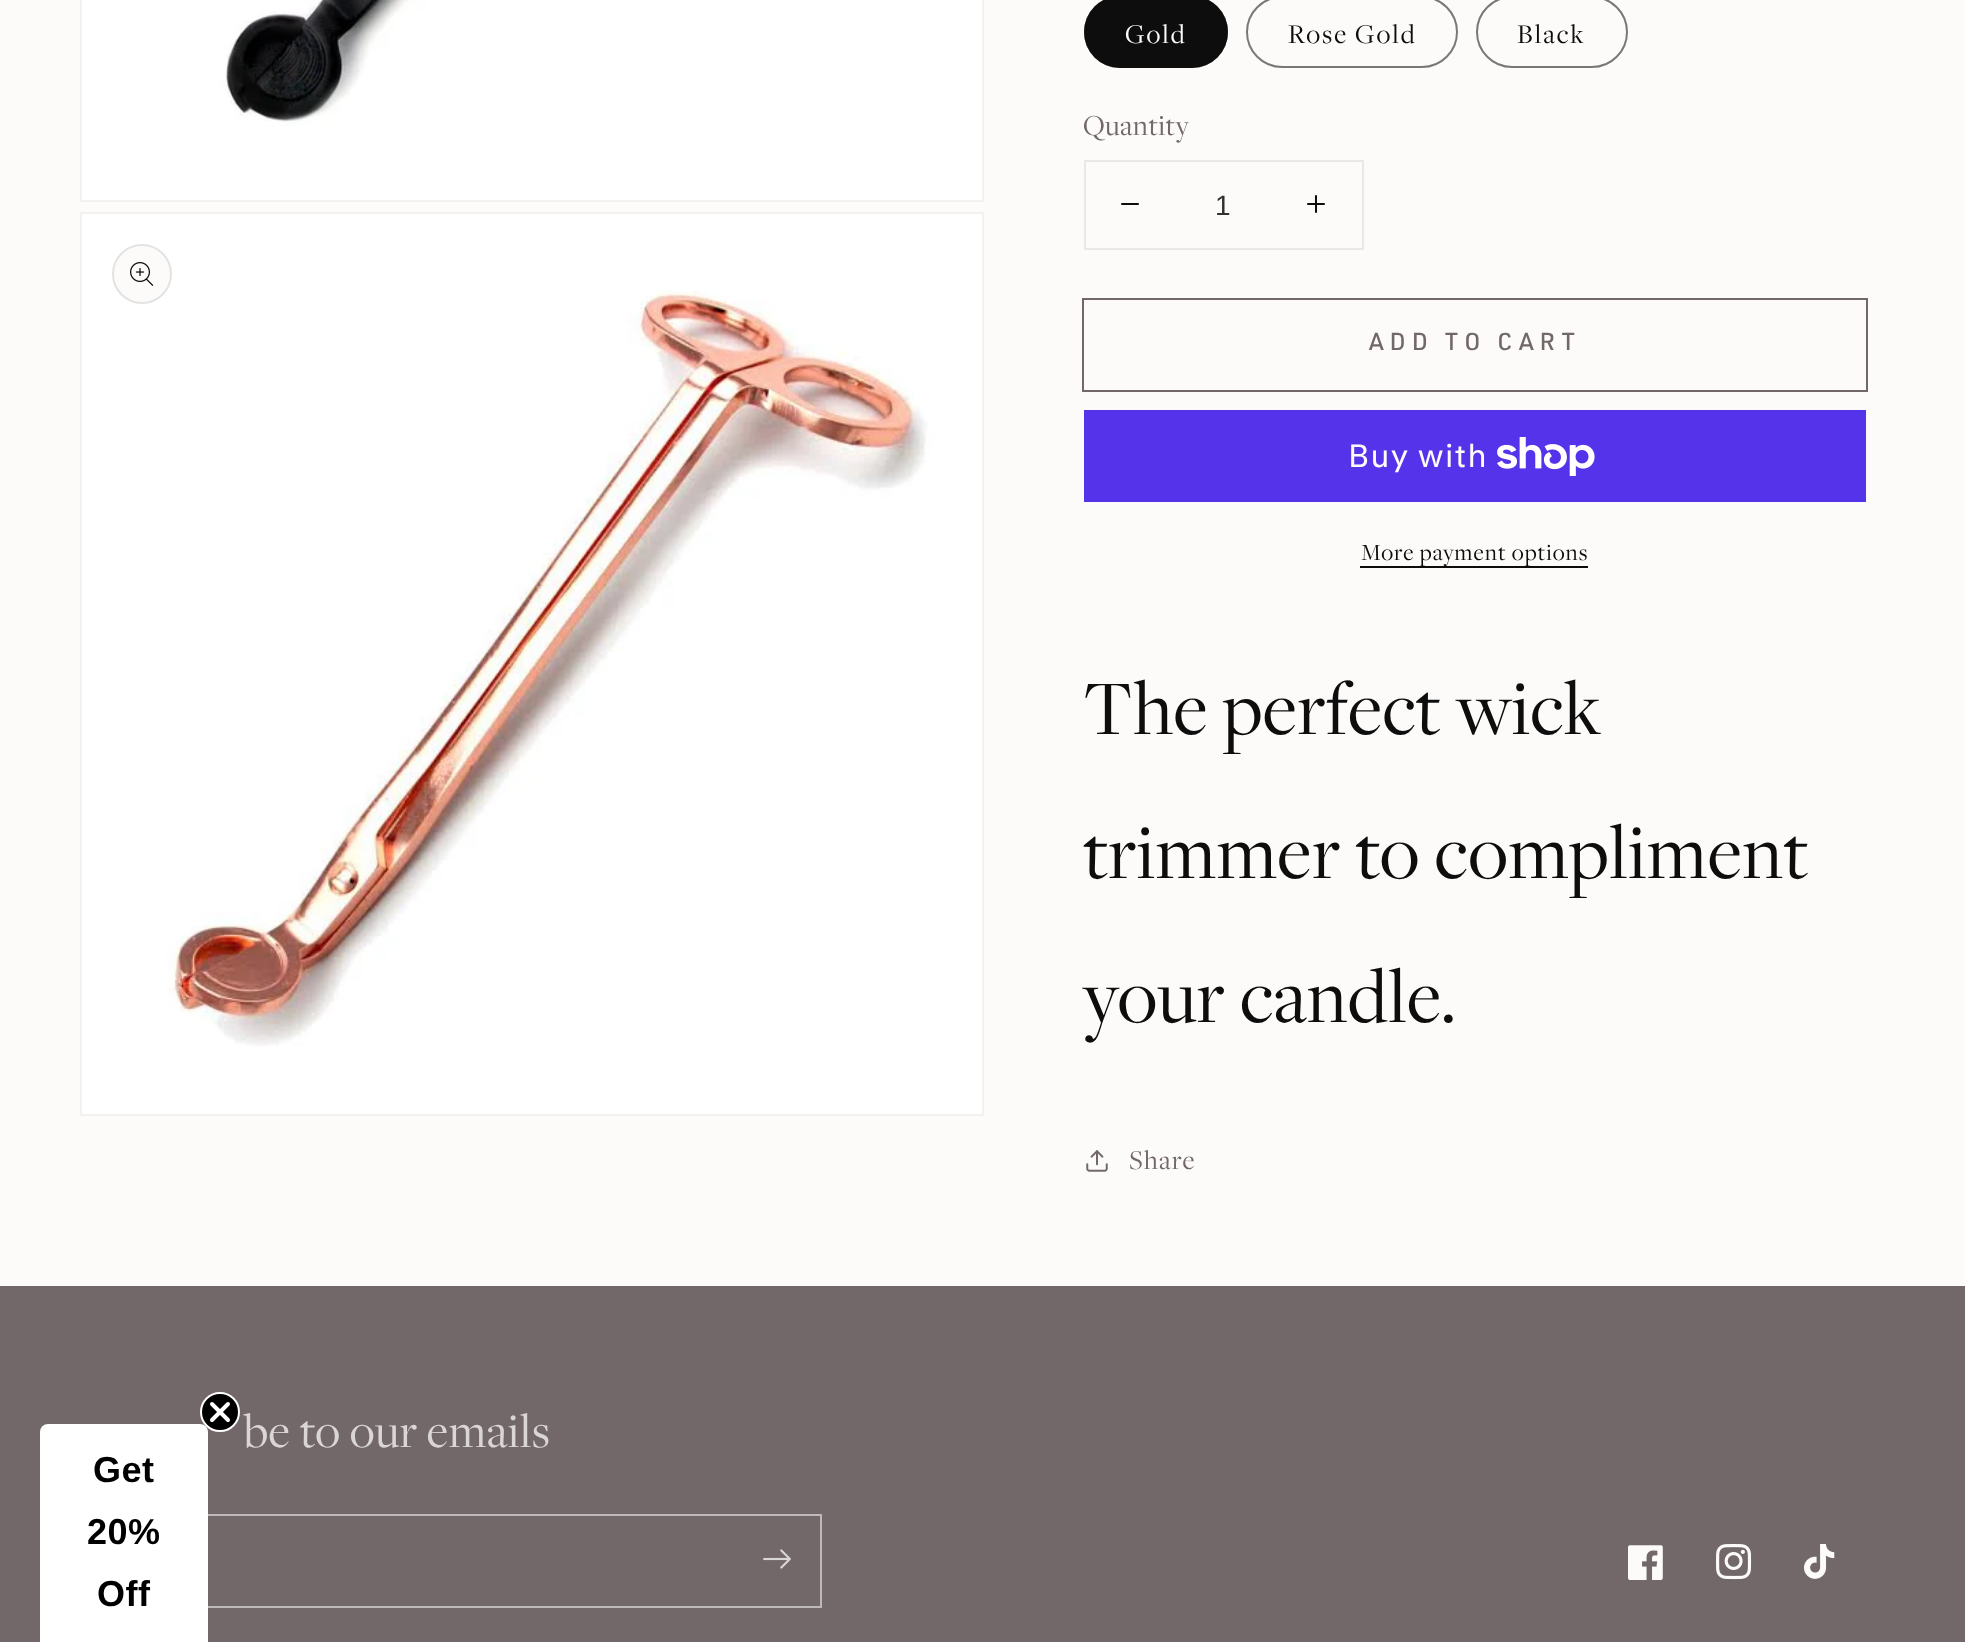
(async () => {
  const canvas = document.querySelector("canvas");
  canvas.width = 1965;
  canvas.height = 1642;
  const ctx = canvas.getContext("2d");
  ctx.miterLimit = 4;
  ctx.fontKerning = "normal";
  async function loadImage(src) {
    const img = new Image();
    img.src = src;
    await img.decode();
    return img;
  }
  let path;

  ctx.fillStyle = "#fcfbfa";
  ctx.fillRect(0, 0, 1965, 1642);
  ctx.strokeStyle = "#f2f1f1";
  ctx.lineWidth = 2;
  ctx.strokeRect(81, -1, 902, 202);
  ctx.drawImage(await loadImage("img/1.png"), 82, 0, 900, 200);
  ctx.strokeRect(81, 213, 902, 902);
  ctx.drawImage(await loadImage("img/2.png"), 82, 214, 900, 900);
  ctx.beginPath();
  ctx.arc(142, 274, 29, 0, Math.PI * 2);
  ctx.fill();
  ctx.strokeStyle = "#e4e3e3";
  ctx.stroke();
  ctx.drawImage(await loadImage("img/3.png"), 130, 262, 24, 24);
  ctx.fillStyle = "#0e0d0d";
  ctx.beginPath();
  ctx.roundRect(1084, -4, 144, 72, 36);
  ctx.fill();
  ctx.beginPath();
  ctx.roundRect(1085, -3, 142, 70, 35);
  ctx.strokeStyle = "rgba(14, 13, 13, 0.55)";
  ctx.stroke();
  ctx.beginPath();
  ctx.roundRect(1247, -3, 210, 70, 35);
  ctx.strokeStyle = "#797878";
  ctx.stroke();
  ctx.beginPath();
  ctx.roundRect(1477, -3, 150, 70, 35);
  ctx.stroke();
  ctx.strokeStyle = "#e9e8e7";
  ctx.strokeRect(1085, 161, 278, 88);
  ctx.drawImage(await loadImage("img/4.png"), 1121, 203, 18, 2);
  ctx.drawImage(await loadImage("img/5.png"), 1307, 195, 18, 18);
  ctx.strokeStyle = "#72686a";
  ctx.strokeRect(1083, 299, 784, 92);
  ctx.fillStyle = "#5433eb";
  ctx.fillRect(1084, 410, 782, 92);
  ctx.drawImage(await loadImage("img/6.png"), 1497, 437, 98, 39);
  ctx.fillStyle = "#0e0d0d";
  ctx.fillRect(1360, 566, 228, 2);
  ctx.drawImage(await loadImage("img/7.png"), 1086, 1150, 22, 22);
  ctx.fillStyle = "#72686a";
  ctx.fillRect(0, 1286, 1965, 356);
  ctx.strokeStyle = "#beb9b9";
  ctx.strokeRect(99, 1515, 722, 92);
  ctx.drawImage(await loadImage("img/8.png"), 763, 1549, 28, 20);
  ctx.drawImage(await loadImage("img/9.png"), 1628, 1545, 35, 35);
  ctx.drawImage(await loadImage("img/10.png"), 1716, 1544, 36, 36);
  ctx.drawImage(await loadImage("img/11.png"), 1804, 1544, 31, 35);
  ctx.fillStyle = "#ffffff";
  ctx.beginPath();
  ctx.roundRect(40, 1424, 168, 218, [8, 8, 0, 0]);
  ctx.fill();
  ctx.fillStyle = "#000000";
  ctx.beginPath();
  ctx.arc(220, 1412, 19, 0, Math.PI * 2);
  ctx.fill();
  ctx.strokeStyle = "#ffffff";
  ctx.stroke();
  path = new Path2D("M212 1404L228 1420M212 1420L228 1404Z");
  ctx.lineWidth = 4;
  ctx.lineCap = "round";
  ctx.lineJoin = "round";
  ctx.stroke(path);
  ctx.letterSpacing = "2px";
  ctx.font = "28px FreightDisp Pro";
  ctx.fillStyle = "#fcfbfa";
  ctx.fillText("Gold", 1125, 43);
  ctx.fillStyle = "#0e0d0d";
  ctx.fillText("Rose Gold", 1288, 43);
  ctx.fillText("Black", 1517, 43);
  ctx.letterSpacing = "0.4px";
  ctx.font = "30px FreightDisp Pro";
  ctx.fillStyle = "#72686a";
  ctx.fillText("Quantity", 1083, 135);
  ctx.letterSpacing = "0px";
  ctx.font = "28px Liberation Sans";
  ctx.fillStyle = "#323131";
  ctx.fillText("1", 1215, 215);
  ctx.letterSpacing = "6px";
  ctx.font = "500 24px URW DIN";
  ctx.fillStyle = "#72686a";
  ctx.fillText("ADD TO CART", 1369, 350);
  ctx.letterSpacing = "1.25px";
  ctx.font = "32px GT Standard";
  ctx.fillStyle = "#fcfbfa";
  ctx.fillText("Buy with", 1348, 467);
  ctx.letterSpacing = "1px";
  ctx.font = "24px FreightDisp Pro";
  ctx.fillStyle = "#0e0d0d";
  ctx.fillText("More payment options", 1361, 560);
  ctx.letterSpacing = "0.4px";
  ctx.font = "80px FreightDisp Pro";
  for (const [text, x, y] of [
    ["The perfect wick", 1083, 734],
    ["trimmer to compliment", 1083, 878],
    ["your candle.", 1083, 1022],
  ]) {
    ctx.fillText(text, x, y);
  }
  ctx.letterSpacing = "1.25px";
  ctx.font = "28px FreightDisp Pro";
  ctx.fillStyle = "#72686a";
  ctx.fillText("Share", 1129, 1169);
  ctx.letterSpacing = "0.4px";
  ctx.font = "50px FreightDisp Pro";
  ctx.fillStyle = "#dad6d6";
  ctx.fillText("be to our emails", 244, 1447);
  ctx.letterSpacing = "0.5px";
  ctx.font = "bold 36px Liberation Sans";
  ctx.fillStyle = "#000000";
  for (const [text, x, y] of [
    ["Get", 93, 1482],
    ["20%", 87, 1544],
    ["Off", 97, 1606],
  ]) {
    ctx.fillText(text, x, y);
  }
})();
